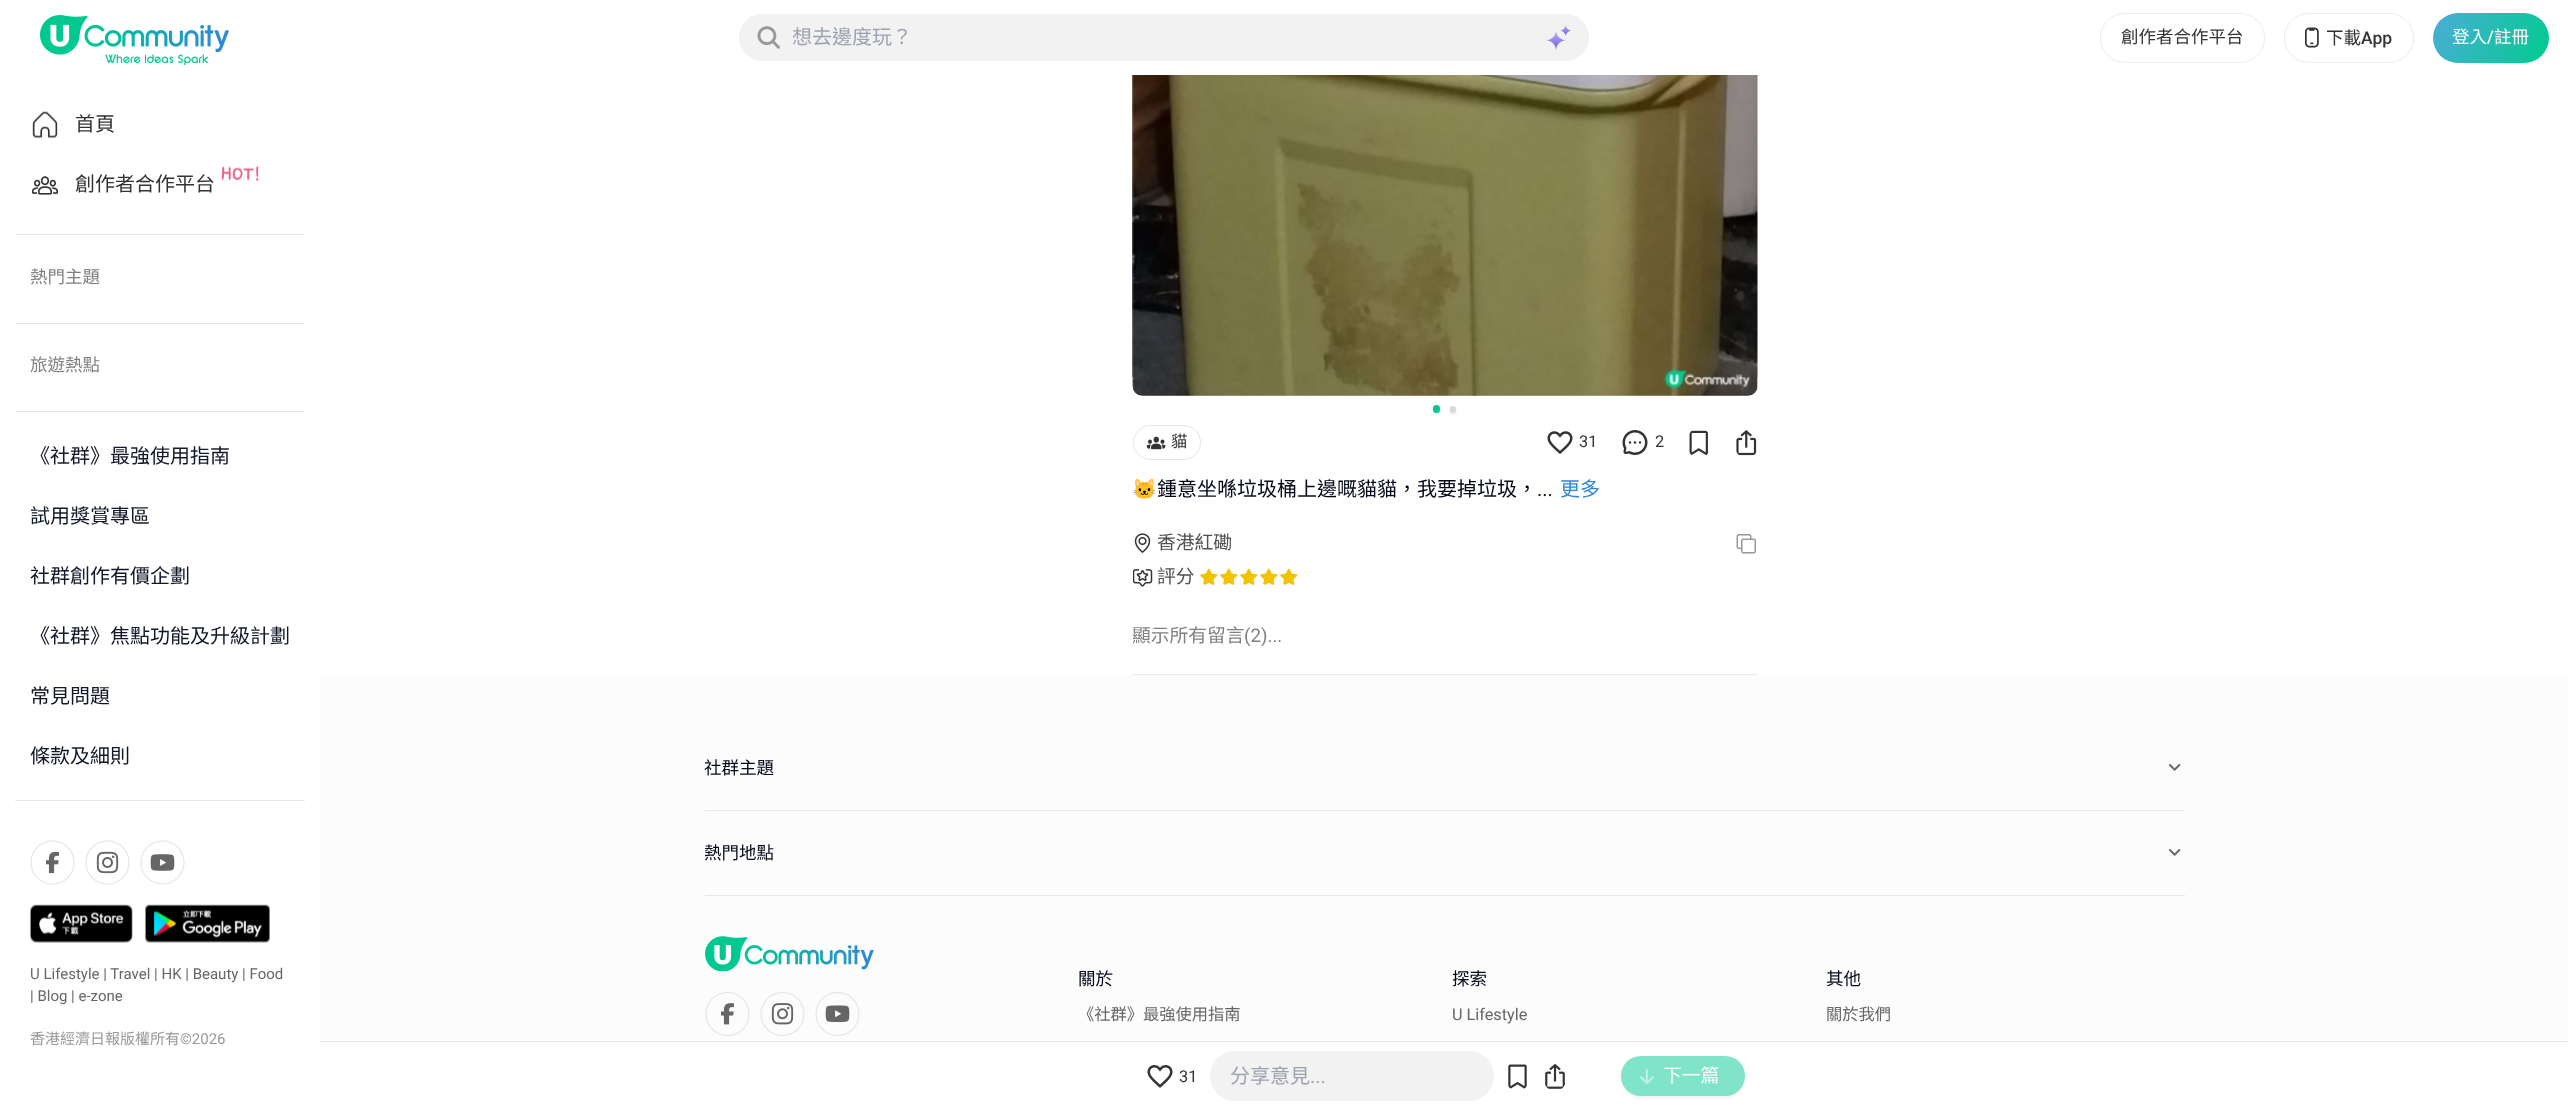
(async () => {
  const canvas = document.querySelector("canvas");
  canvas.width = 2568;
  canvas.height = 1109;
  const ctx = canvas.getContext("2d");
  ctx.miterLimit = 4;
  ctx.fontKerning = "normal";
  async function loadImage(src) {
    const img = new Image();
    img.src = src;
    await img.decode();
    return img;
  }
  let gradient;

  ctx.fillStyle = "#ffffff";
  ctx.fillRect(0, 0, 2568, 1109);
  ctx.fillStyle = "#e8e8ea";
  ctx.beginPath();
  ctx.roundRect(1133, -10, 625, 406, 10);
  ctx.fill();
  ctx.fillStyle = "#ffffff";
  ctx.fillRect(1133, 0, 625, 75);
  ctx.drawImage(await loadImage("img/1.png"), 40, 15, 189, 50);
  ctx.fillStyle = "#f2f2f2";
  ctx.beginPath();
  ctx.roundRect(739, 14, 850, 47, 23.5);
  ctx.fill();
  ctx.drawImage(await loadImage("img/2.png"), 757, 26, 23, 23);
  ctx.drawImage(await loadImage("img/3.png"), 1546, 25, 25, 25);
  ctx.beginPath();
  ctx.roundRect(2100.5, 13.5, 164, 49, 24.5);
  ctx.strokeStyle = "#ebebeb";
  ctx.stroke();
  ctx.beginPath();
  ctx.roundRect(2284.5, 13.5, 129, 49, 24.5);
  ctx.stroke();
  ctx.drawImage(await loadImage("img/4.png"), 2305, 27, 14, 21);
  gradient = ctx.createLinearGradient(2433, 11, 2548, 64);
  gradient.addColorStop(0, "#4badd6");
  gradient.addColorStop(1, "#00cc8f");
  ctx.fillStyle = gradient;
  ctx.beginPath();
  ctx.roundRect(2433, 13, 116, 50, 25);
  ctx.fill();
  ctx.drawImage(await loadImage("img/5.png"), 32, 111, 26, 27);
  ctx.drawImage(await loadImage("img/6.png"), 31, 176, 28, 19);
  ctx.drawImage(await loadImage("img/7.png"), 221, 165, 38, 16);
  for (const [x, y, w, h, color] of [
    [15, 234, 290, 1, "#e2e8f0"],
    [15, 323, 290, 1, "#e2e8f0"],
    [15, 411, 290, 1, "#e2e8f0"],
    [15, 800, 290, 1, "#e2e8f0"],
  ]) {
    ctx.fillStyle = color;
    ctx.fillRect(x, y, w, h);
  }
  ctx.drawImage(await loadImage("img/8.png"), 30, 840, 45, 45);
  ctx.drawImage(await loadImage("img/9.png"), 85, 840, 45, 45);
  ctx.drawImage(await loadImage("img/10.png"), 140, 840, 45, 45);
  ctx.drawImage(await loadImage("img/11.png"), 30, 904, 103, 39);
  ctx.drawImage(await loadImage("img/12.png"), 145, 904, 125, 39);
  ctx.fillStyle = "#ebebeb";
  ctx.fillRect(1133, 674, 625, 1);
  ctx.drawImage(await loadImage("img/13.png"), 1132, 75, 626, 321);
  ctx.fillStyle = "rgba(0, 0, 0, 0.1)";
  ctx.filter = "blur(1.5px)";
  ctx.beginPath();
  ctx.roundRect(1434, 408, 5, 5, 2.5);
  ctx.fill();
  ctx.filter = "none";
  ctx.filter = "blur(2.5px)";
  ctx.beginPath();
  ctx.roundRect(1433, 406, 7, 8, 3.5);
  ctx.fill();
  ctx.filter = "none";
  ctx.fillStyle = "#00c891";
  ctx.beginPath();
  ctx.roundRect(1433, 405, 7, 8, 3.5);
  ctx.fill();
  ctx.fillStyle = "rgba(0, 0, 0, 0.1)";
  ctx.filter = "blur(1px)";
  ctx.beginPath();
  ctx.roundRect(1451, 409, 4, 4, 2);
  ctx.fill();
  ctx.filter = "none";
  ctx.filter = "blur(2px)";
  ctx.beginPath();
  ctx.roundRect(1450, 408, 6, 6, 3);
  ctx.fill();
  ctx.filter = "none";
  ctx.fillStyle = "#d8d8d8";
  ctx.beginPath();
  ctx.roundRect(1450, 406, 6, 7, 3);
  ctx.fill();
  ctx.beginPath();
  ctx.roundRect(1133.5, 425.5, 67, 34, 17);
  ctx.strokeStyle = "#e6e6e6";
  ctx.stroke();
  ctx.drawImage(await loadImage("img/14.png"), 1146, 436, 20, 14);
  ctx.drawImage(await loadImage("img/15.png"), 1547, 431, 26, 23);
  ctx.drawImage(await loadImage("img/16.png"), 1622, 430, 26, 25);
  ctx.drawImage(await loadImage("img/17.png"), 1689, 430, 19, 26);
  ctx.drawImage(await loadImage("img/18.png"), 1736, 430, 21, 26);
  ctx.drawImage(await loadImage("img/19.png"), 1134, 533, 17, 20);
  ctx.drawImage(await loadImage("img/20.png"), 1736, 534, 20, 20);
  ctx.drawImage(await loadImage("img/21.png"), 1133, 569, 20, 18);
  ctx.drawImage(await loadImage("img/22.png"), 1200, 568, 18, 17);
  ctx.drawImage(await loadImage("img/22.png"), 1220, 568, 18, 17);
  ctx.drawImage(await loadImage("img/22.png"), 1240, 568, 18, 17);
  ctx.drawImage(await loadImage("img/22.png"), 1260, 568, 18, 17);
  ctx.drawImage(await loadImage("img/22.png"), 1280, 568, 18, 17);
  ctx.fillStyle = "#fcfcfc";
  ctx.fillRect(320, 675, 2248, 368);
  ctx.drawImage(await loadImage("img/23.png"), 2168, 764, 13, 7);
  ctx.fillStyle = "#e2e8f0";
  ctx.fillRect(705, 810, 1480, 1);
  ctx.drawImage(await loadImage("img/23.png"), 2168, 849, 13, 7);
  ctx.fillRect(705, 895, 1480, 1);
  ctx.drawImage(await loadImage("img/24.png"), 705, 936, 169, 35);
  ctx.drawImage(await loadImage("img/25.png"), 705, 992, 45, 44);
  ctx.drawImage(await loadImage("img/26.png"), 760, 992, 45, 44);
  ctx.drawImage(await loadImage("img/27.png"), 815, 992, 45, 44);
  ctx.fillStyle = "#e7e7e7";
  ctx.fillRect(320, 1041, 2248, 1);
  ctx.drawImage(await loadImage("img/28.png"), 1147, 1065, 26, 23);
  ctx.fillStyle = "#f2f2f2";
  ctx.beginPath();
  ctx.roundRect(1210, 1051, 284, 50, 25);
  ctx.fill();
  ctx.drawImage(await loadImage("img/29.png"), 1508, 1064, 19, 25);
  ctx.drawImage(await loadImage("img/30.png"), 1545, 1063, 20, 26);
  ctx.fillStyle = "rgba(128, 128, 128, 0.1)";
  ctx.filter = "blur(1px)";
  ctx.beginPath();
  ctx.roundRect(1623, 1059, 121, 37, 18.5);
  ctx.fill();
  ctx.filter = "none";
  ctx.filter = "blur(2px)";
  ctx.beginPath();
  ctx.roundRect(1621, 1058, 124, 40, 20);
  ctx.fill();
  ctx.filter = "none";
  ctx.fillStyle = "#80e4c8";
  ctx.beginPath();
  ctx.roundRect(1621, 1056, 124, 40, 20);
  ctx.fill();
  ctx.drawImage(await loadImage("img/31.png"), 1640, 1069, 14, 15);
  ctx.font = "20px Noto Sans CJK HK";
  ctx.fillStyle = "#9ca3af";
  ctx.fillText("想去邊度玩？", 792, 44);
  ctx.font = "17.5px Noto Sans CJK HK";
  ctx.fillStyle = "#333333";
  ctx.fillText("創作者合作平台", 2121, 43);
  ctx.fillText("下載", 2326, 44);
  ctx.font = "500 17.5px Roboto";
  ctx.fillText("App", 2361, 44);
  ctx.font = "17.5px Noto Sans CJK HK";
  ctx.fillStyle = "#fcfdfe";
  ctx.fillText("登入", 2452, 43);
  ctx.font = "500 17.5px Roboto";
  ctx.fillText("/", 2487, 43);
  ctx.font = "17.5px Noto Sans CJK HK";
  ctx.fillText("註冊", 2494, 43);
  ctx.font = "20px Noto Sans CJK HK";
  ctx.fillStyle = "#333333";
  ctx.fillText("首頁", 75, 131);
  ctx.fillText("創作者合作平台", 75, 191);
  ctx.font = "17.5px Noto Sans CJK HK";
  ctx.fillStyle = "#808080";
  ctx.fillText("熱門主題", 30, 283);
  ctx.fillText("旅遊熱點", 30, 371);
  ctx.font = "20px Noto Sans CJK HK";
  ctx.fillStyle = "#111827";
  for (const [text, x, y] of [
    ["《社群》最強使用指南", 30, 463],
    ["試用獎賞專區", 30, 523],
    ["社群創作有價企劃", 30, 583],
    ["《社群》焦點功能及升級計劃", 30, 643],
    ["常見問題", 30, 703],
    ["條款及細則", 30, 763],
  ]) {
    ctx.fillText(text, x, y);
  }
  ctx.font = "15px Roboto";
  ctx.fillStyle = "#666666";
  ctx.fillText("U Lifestyle | Travel | HK | Beauty | Food", 30, 979);
  ctx.fillText("| Blog | e-zone", 30, 1001);
  ctx.font = "15px Noto Sans CJK HK";
  ctx.fillStyle = "#999999";
  ctx.fillText("香港經濟日報版權所有", 30, 1044);
  ctx.font = "15px Roboto";
  ctx.fillText("©2026", 180, 1044);
  ctx.font = "16.25px Noto Sans CJK HK";
  ctx.fillStyle = "#333333";
  ctx.fillText("貓", 1171, 447);
  ctx.font = "16.25px Roboto";
  ctx.fillText("31", 1579, 447);
  ctx.fillText("2", 1655, 447);
  ctx.font = "20px Noto Color Emoji";
  ctx.fillStyle = "#020817";
  ctx.fillText("🐱", 1132, 496);
  ctx.font = "20px Noto Sans CJK HK";
  ctx.fillText("鍾意坐喺垃圾桶上邊嘅貓貓，我要掉垃圾，", 1157, 496);
  ctx.font = "20px Roboto";
  ctx.fillText("...", 1537, 496);
  ctx.font = "20px Noto Sans CJK HK";
  ctx.fillStyle = "#3087d9";
  ctx.fillText("更多", 1560, 496);
  ctx.font = "18.75px Noto Sans CJK HK";
  ctx.fillStyle = "#505050";
  ctx.fillText("香港紅磡", 1157, 549);
  ctx.fillText("評分", 1157, 583);
  ctx.fillStyle = "#808080";
  ctx.fillText("顯示所有留言", 1132, 642);
  ctx.font = "18.75px Roboto";
  ctx.fillText("(2)...", 1244, 642);
  ctx.font = "17.5px Noto Sans CJK HK";
  ctx.fillStyle = "#020817";
  for (const [text, x, y] of [
    ["社群主題", 704, 774],
    ["熱門地點", 704, 859],
    ["關於", 1078, 985],
  ]) {
    ctx.fillText(text, x, y);
  }
  ctx.font = "16.25px Noto Sans CJK HK";
  ctx.fillStyle = "#666666";
  ctx.fillText("《社群》最強使用指南", 1078, 1020);
  ctx.font = "17.5px Noto Sans CJK HK";
  ctx.fillStyle = "#020817";
  ctx.fillText("探索", 1452, 985);
  ctx.font = "16.25px Roboto";
  ctx.fillStyle = "#666666";
  ctx.fillText("U Lifestyle", 1452, 1020);
  ctx.font = "17.5px Noto Sans CJK HK";
  ctx.fillStyle = "#020817";
  ctx.fillText("其他", 1826, 985);
  ctx.font = "16.25px Noto Sans CJK HK";
  ctx.fillStyle = "#666666";
  ctx.fillText("關於我們", 1826, 1020);
  ctx.font = "16.25px Roboto";
  ctx.fillStyle = "#333333";
  ctx.fillText("31", 1179, 1082);
  ctx.font = "20px Noto Sans CJK HK";
  ctx.fillStyle = "#9ca3af";
  ctx.fillText("分享意見", 1230, 1083);
  ctx.font = "20px Roboto";
  ctx.fillText("...", 1310, 1083);
  ctx.font = "18.75px Noto Sans CJK HK";
  ctx.fillStyle = "#fcfdfe";
  ctx.fillText("下一篇", 1663, 1082);
})();
